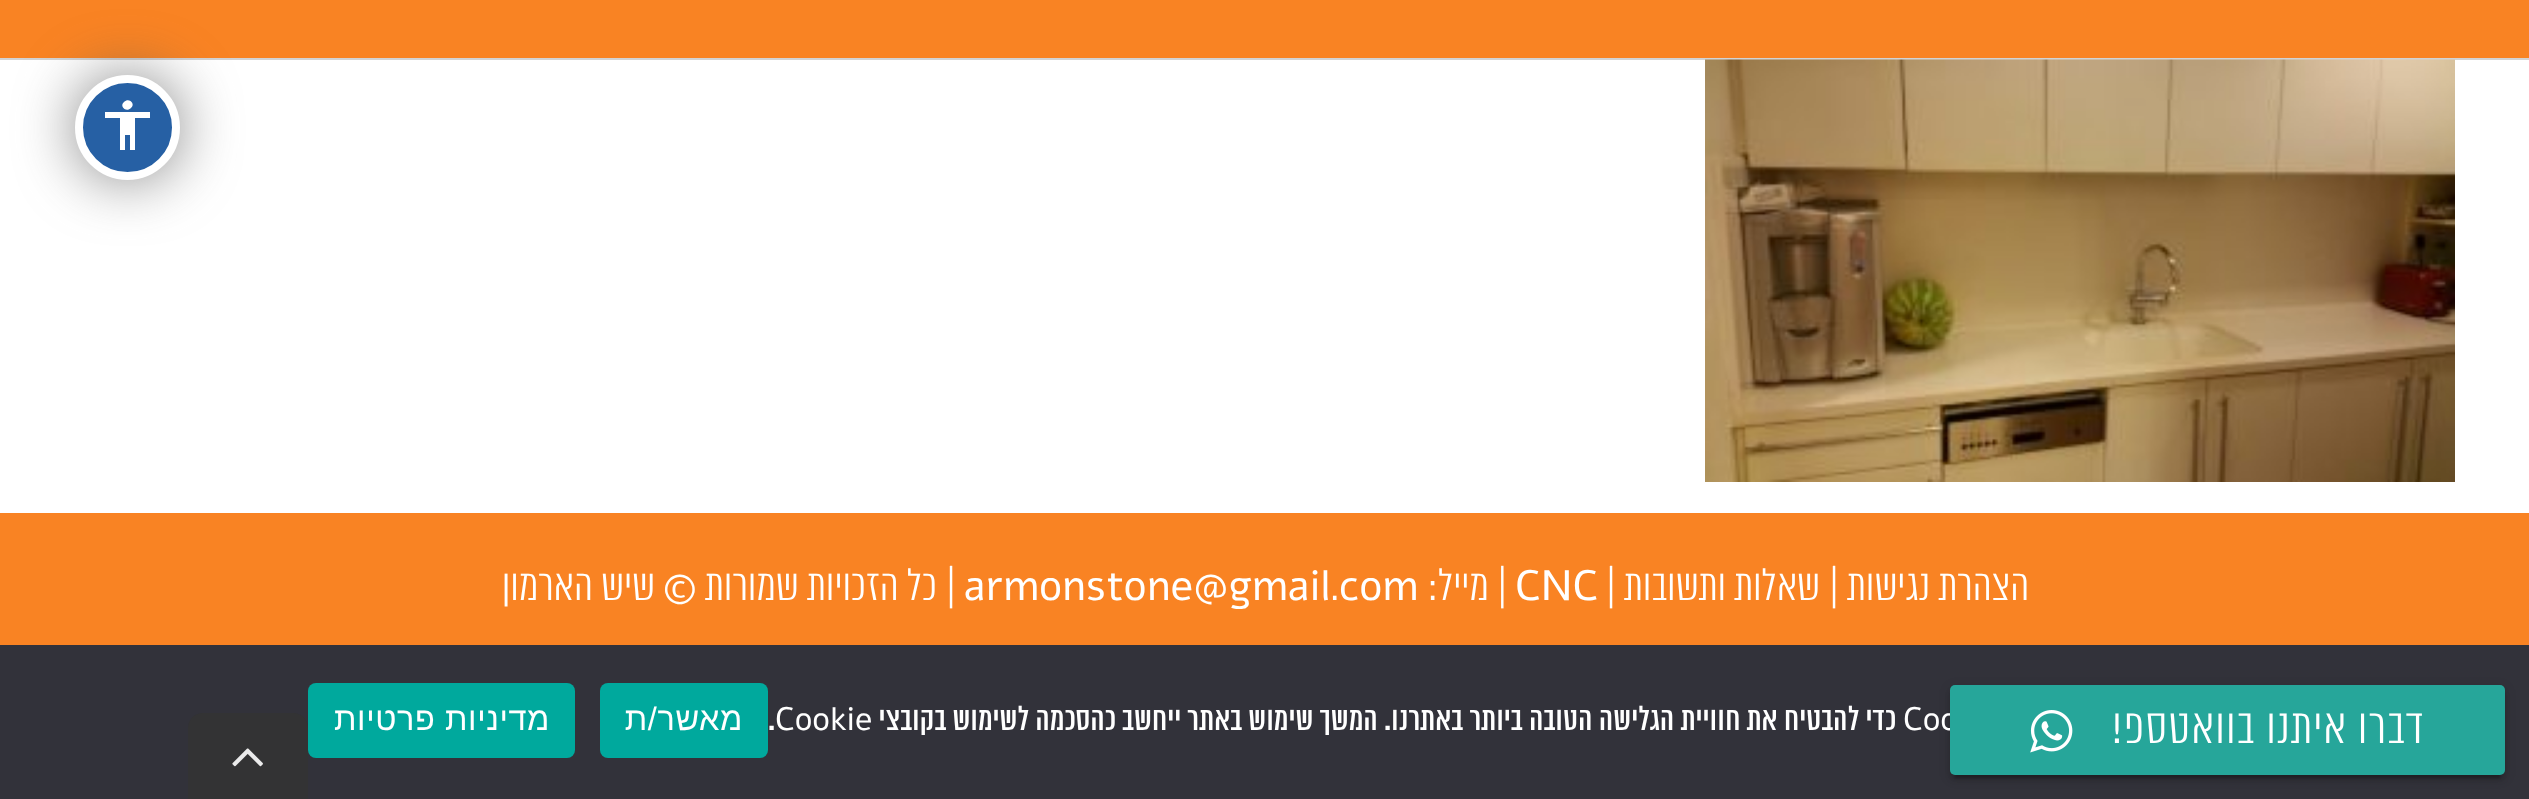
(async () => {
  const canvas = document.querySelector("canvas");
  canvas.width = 2529;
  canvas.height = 799;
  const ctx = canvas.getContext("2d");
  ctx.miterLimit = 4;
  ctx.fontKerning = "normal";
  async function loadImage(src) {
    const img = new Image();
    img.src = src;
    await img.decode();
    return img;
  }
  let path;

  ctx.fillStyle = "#f98323";
  ctx.fillRect(0, 0, 2529, 799);
  ctx.fillStyle = "#d2d3d4";
  ctx.fillRect(0, 58, 2529, 2);
  ctx.fillStyle = "#ffffff";
  ctx.fillRect(0, 60, 2529, 453);
  ctx.fillStyle = "rgba(89, 89, 89, 0.75)";
  ctx.filter = "blur(30px)";
  ctx.beginPath();
  ctx.roundRect(75, 75, 105, 105, 52.5);
  ctx.fill();
  ctx.filter = "none";
  ctx.fillStyle = "#2660a4";
  ctx.beginPath();
  ctx.arc(127.5, 127.5, 48.5, 0, Math.PI * 2);
  ctx.fill();
  ctx.strokeStyle = "#ffffff";
  ctx.lineWidth = 8;
  ctx.stroke();
  ctx.fillStyle = "#ffffff";
  path = new Path2D("M150 118H135V150H130V135H125V150H120V118H105V112H150ZM124 102C129 97 136 104 131 108C126 113 119 106 124 102Z");
  ctx.fill(path);
  ctx.drawImage(await loadImage("img/1.png"), 1705, 59, 750, 423);
  ctx.fillStyle = "#32323a";
  ctx.fillRect(0, 645, 2529, 154);
  ctx.fillStyle = "rgba(0, 0, 0, 0.2)";
  ctx.filter = "blur(1px)";
  ctx.beginPath();
  ctx.rect(1955, 698, 545, 80);
  ctx.fill();
  ctx.filter = "none";
  ctx.fillStyle = "rgba(0, 0, 0, 0.12)";
  ctx.filter = "blur(6px)";
  ctx.beginPath();
  ctx.roundRect(1950, 688, 555, 90, 5);
  ctx.fill();
  ctx.filter = "none";
  ctx.fillStyle = "rgba(0, 0, 0, 0.14)";
  ctx.filter = "blur(2.5px)";
  ctx.beginPath();
  ctx.roundRect(1950, 690, 555, 90, 5);
  ctx.fill();
  ctx.filter = "none";
  ctx.fillStyle = "#00a99d";
  ctx.beginPath();
  ctx.roundRect(600, 683, 168, 75, 8);
  ctx.fill();
  ctx.beginPath();
  ctx.roundRect(308, 683, 267, 75, 8);
  ctx.fill();
  ctx.fillStyle = "#333334";
  path = new Path2D("M203 713H293C301.5 713 308 719.5 308 728V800H188V728C188 719.5 194.5 713 203 713Z");
  ctx.fill(path);
  ctx.drawImage(await loadImage("img/3.png"), 232, 748, 31, 19);
  ctx.direction = "rtl";
  ctx.font = "300 42.5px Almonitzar";
  ctx.fillStyle = "#ffffff";
  ctx.fillText("הצהרת נגישות", 2029, 600);
  ctx.direction = "ltr";
  ctx.fillText("|", 1829, 600);
  ctx.direction = "rtl";
  ctx.fillText("שאלות ותשובות", 1820, 600);
  ctx.direction = "ltr";
  ctx.fillText("|", 1606, 600);
  ctx.font = "42.5px Alef";
  ctx.fillText("CNC", 1515, 600);
  ctx.direction = "rtl";
  ctx.font = "300 42.5px Almonitzar";
  ctx.fillText("| מייל:", 1507, 600);
  ctx.direction = "ltr";
  ctx.font = "42.5px Alef";
  ctx.fillText("com", 1339, 600);
  ctx.font = "300 42.5px Almonitzar";
  ctx.fillText(".", 1330, 600);
  ctx.font = "42.5px Alef";
  ctx.fillText("armonstone@gmail", 964, 600);
  ctx.font = "300 42.5px Almonitzar";
  ctx.fillText("|", 946, 600);
  ctx.direction = "rtl";
  ctx.fillText("כל הזכויות שמורות", 937, 600);
  ctx.font = "42.5px Alef";
  ctx.fillText("©", 697, 600);
  ctx.font = "300 42.5px Almonitzar";
  ctx.fillText("שיש הארמון", 655, 600);
  ctx.direction = "ltr";
  ctx.font = "32.5px Alef";
  ctx.fillText("Coo", 1903, 730);
  ctx.fillStyle = "#26a69a";
  ctx.beginPath();
  ctx.roundRect(1950, 685, 555, 90, 5);
  ctx.fill();
  ctx.drawImage(await loadImage("img/2.png"), 2030, 710, 43, 43);
  ctx.letterSpacing = "1.25px";
  ctx.direction = "rtl";
  ctx.font = "300 47.5px Almonitzar";
  ctx.fillStyle = "#ffffff";
  ctx.fillText("דברו איתנו בוואטספ!", 2425, 743);
  ctx.letterSpacing = "0px";
  ctx.font = "32.5px Almonitzar";
  ctx.fillText("כדי להבטיח את חוויית הגלישה הטובה ביותר באתרנו. המשך שימוש באתר ייחשב כהסכמה לשימוש בקובצי", 1896, 730);
  ctx.direction = "ltr";
  ctx.font = "32.5px Alef";
  ctx.fillText("Cookie", 775, 730);
  ctx.font = "32.5px Almonitzar";
  ctx.fillText(".", 768, 730);
  ctx.letterSpacing = "0.6px";
  ctx.direction = "rtl";
  ctx.font = "32.5px Liberation Sans";
  ctx.fillText("מאשר/ת", 743, 730);
  ctx.fillText("מדיניות פרטיות", 550, 730);
})();
